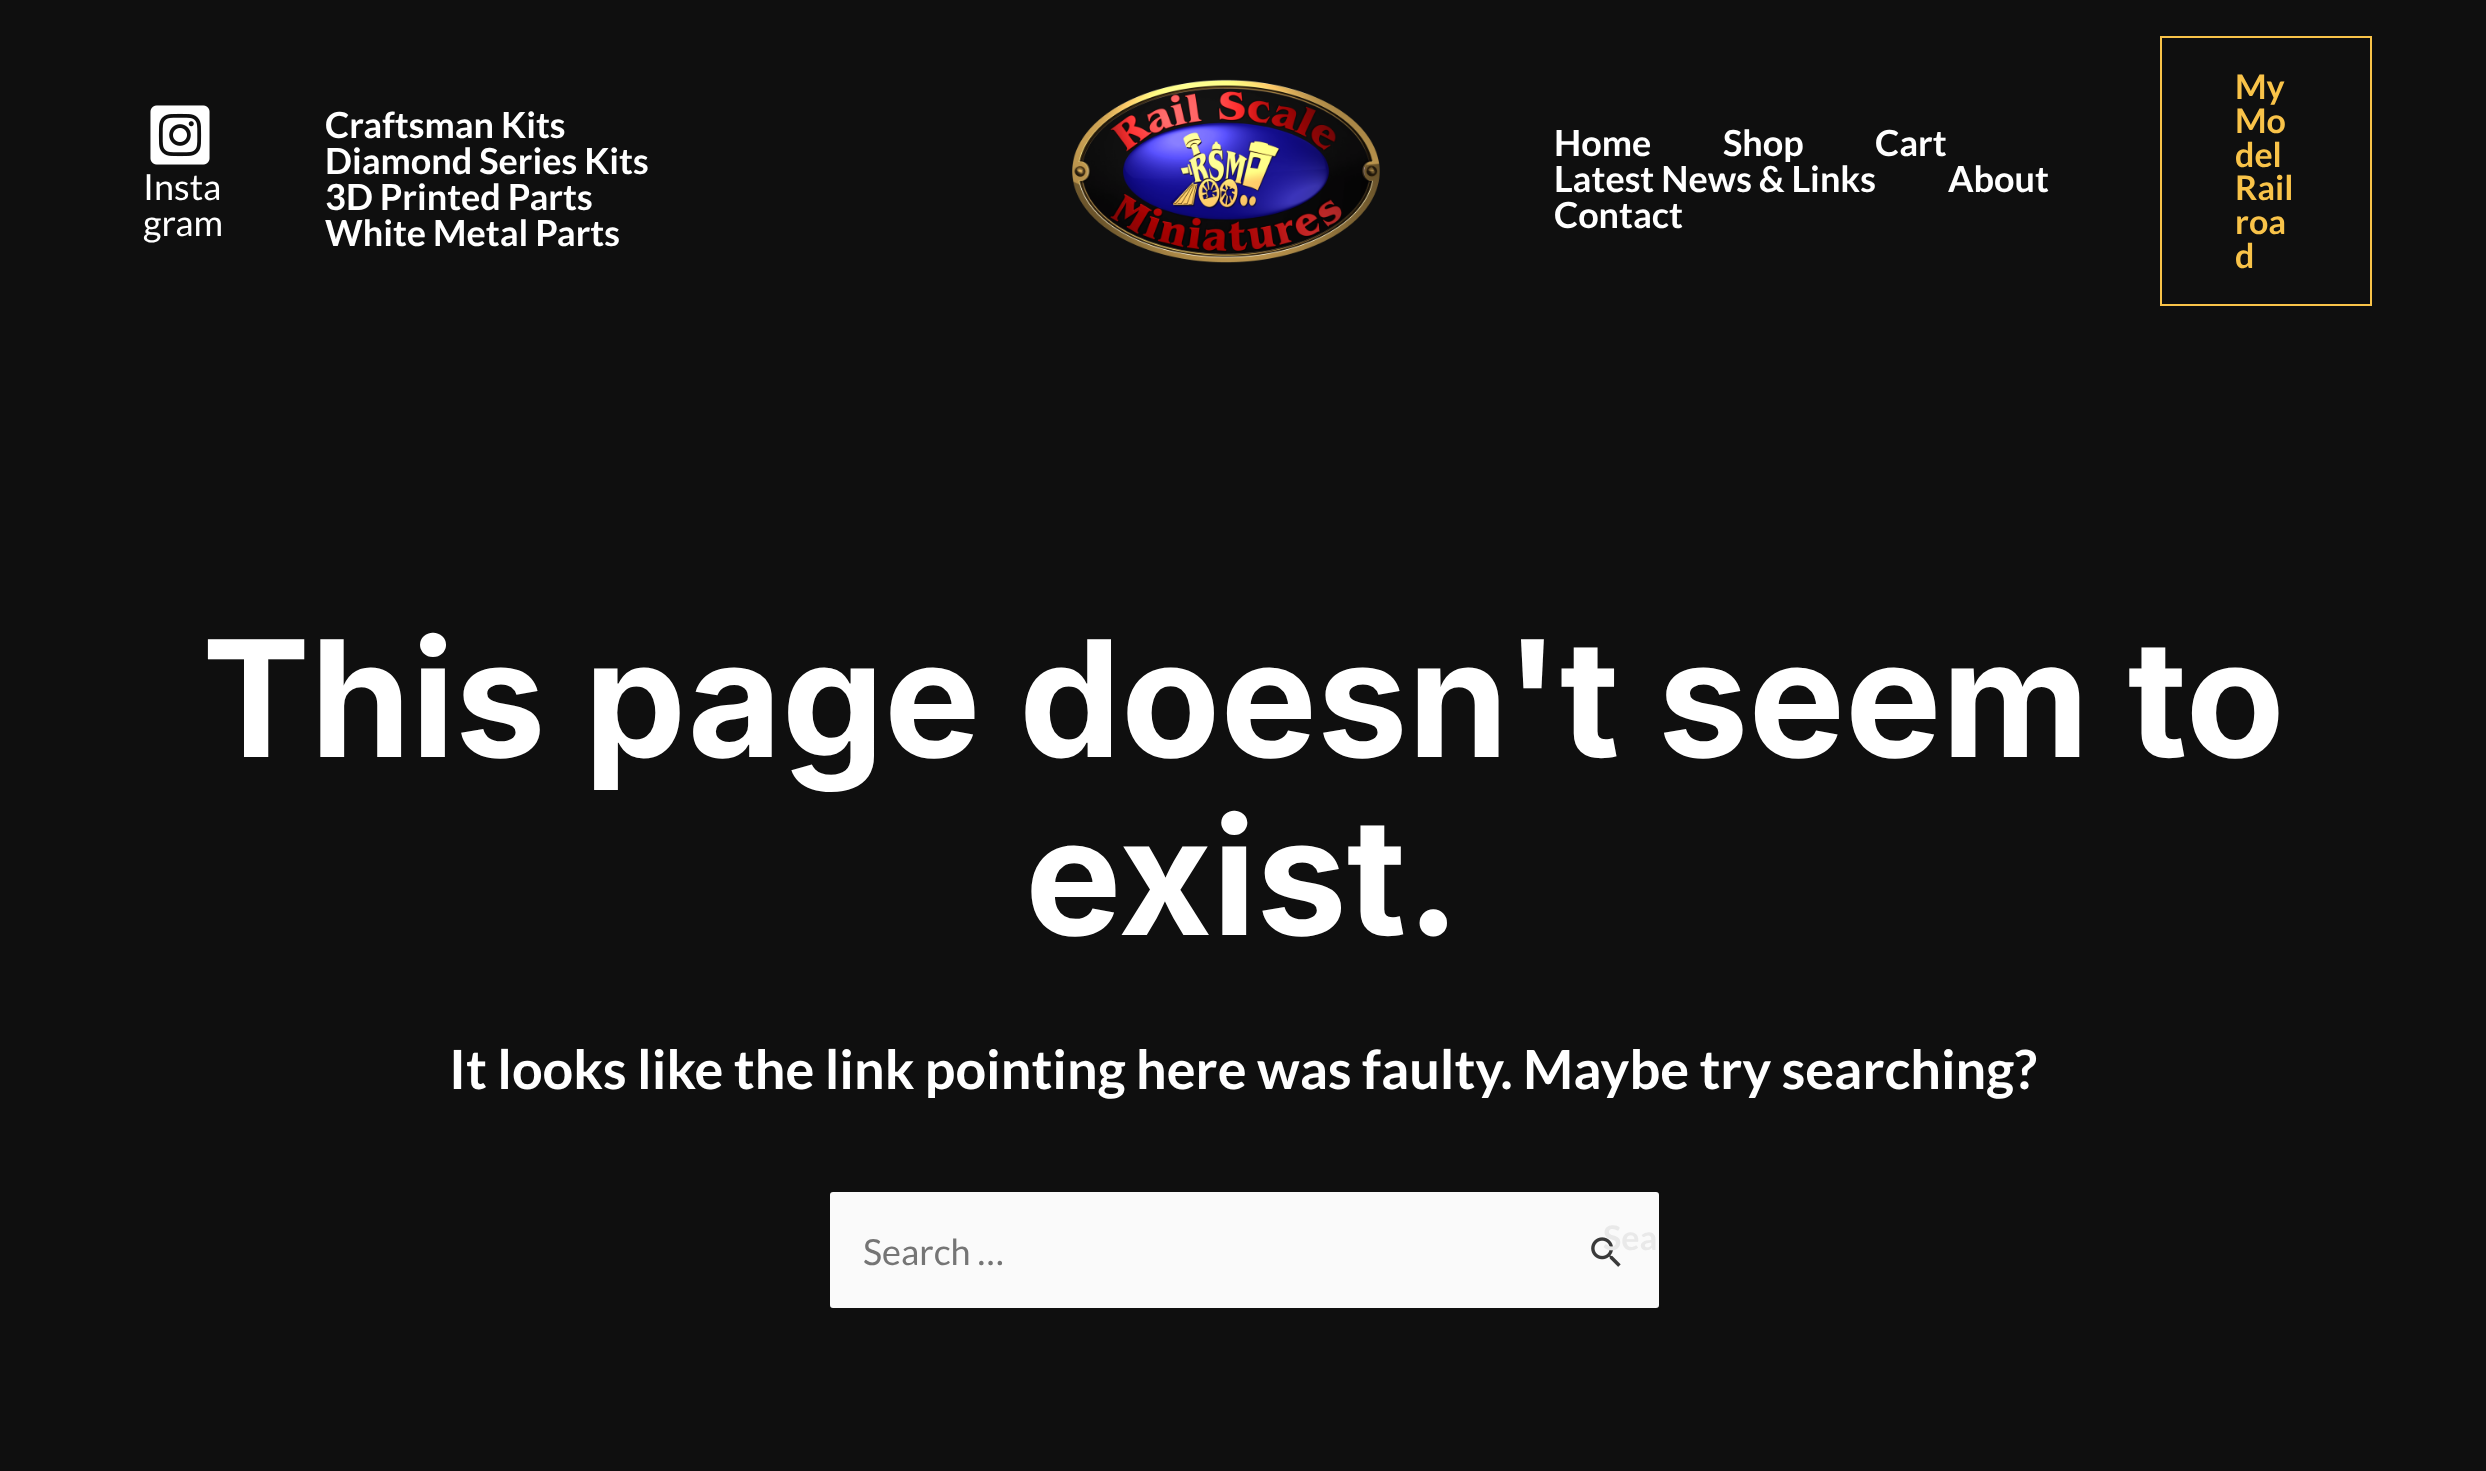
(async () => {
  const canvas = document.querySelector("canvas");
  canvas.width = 2486;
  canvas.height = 1471;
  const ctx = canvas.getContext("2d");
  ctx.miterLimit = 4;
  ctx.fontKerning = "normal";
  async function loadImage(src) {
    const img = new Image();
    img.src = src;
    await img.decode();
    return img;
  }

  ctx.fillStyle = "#0f0f0f";
  ctx.fillRect(0, 0, 2486, 1471);
  ctx.drawImage(await loadImage("img/1.png"), 150, 105, 60, 60);
  ctx.drawImage(await loadImage("img/2.png"), 1072, 79, 308, 184);
  ctx.strokeStyle = "#f9c349";
  ctx.lineWidth = 2;
  ctx.strokeRect(2161, 37, 210, 268);
  ctx.fillStyle = "#fafafa";
  ctx.beginPath();
  ctx.roundRect(829, 1191, 831, 118, 4);
  ctx.fill();
  ctx.strokeStyle = "#0f0f0f";
  ctx.stroke();
  ctx.drawImage(await loadImage("img/3.png"), 1591, 1237, 30, 30);
  ctx.font = "36px Lato";
  ctx.fillStyle = "#ffffff";
  ctx.fillText("Insta", 143, 200);
  ctx.fillText("gram", 143, 236);
  ctx.font = "bold 36px Lato";
  for (const [text, x, y] of [
    ["Craftsman Kits", 325, 138],
    ["Diamond Series Kits", 325, 174],
    ["3D Printed Parts", 325, 210],
    ["White Metal Parts", 325, 246],
    ["Home", 1554, 156],
    ["Shop", 1723, 156],
    ["Cart", 1875, 156],
    ["Latest News & Links", 1554, 192],
    ["About", 1948, 192],
    ["Contact", 1554, 228],
  ]) {
    ctx.fillText(text, x, y);
  }
  ctx.font = "bold 34px Lato";
  ctx.fillStyle = "#f9c349";
  for (const [text, x, y] of [
    ["My", 2235, 99],
    ["Mo", 2235, 133],
    ["del", 2235, 167],
    ["Rail", 2235, 200],
    ["roa", 2235, 234],
    ["d", 2235, 268],
  ]) {
    ctx.fillText(text, x, y);
  }
  ctx.font = "bold 162px Inter";
  ctx.fillStyle = "#ffffff";
  ctx.fillText("This page doesn't seem to", 202, 757);
  ctx.fillText("exist.", 1025, 935);
  ctx.font = "bold 54px Lato";
  ctx.fillText("It looks like the link pointing here was faulty. Maybe try searching?", 449, 1089);
  ctx.font = "36px Lato";
  ctx.fillStyle = "#757575";
  ctx.fillText("Search …", 863, 1265);
  ctx.font = "bold 34px Lato";
  ctx.fillStyle = "#e9e9e9";
  ctx.fillText("Sea", 1603, 1250);
})();
